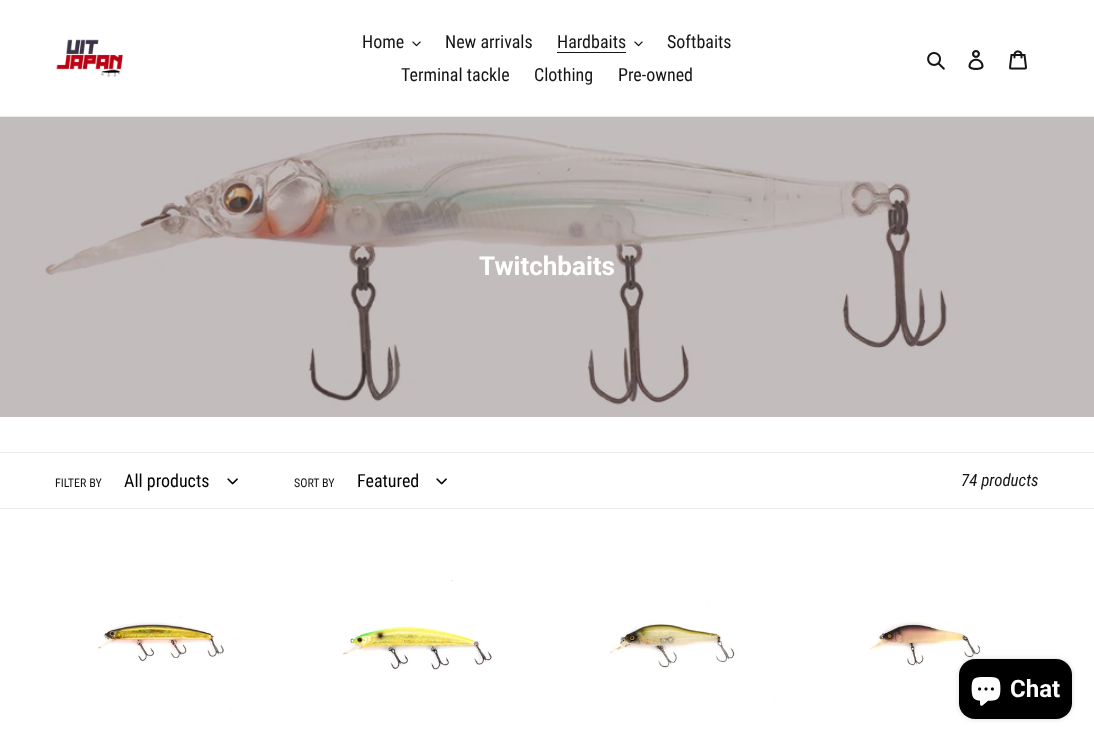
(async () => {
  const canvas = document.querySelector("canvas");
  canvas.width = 1094;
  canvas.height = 740;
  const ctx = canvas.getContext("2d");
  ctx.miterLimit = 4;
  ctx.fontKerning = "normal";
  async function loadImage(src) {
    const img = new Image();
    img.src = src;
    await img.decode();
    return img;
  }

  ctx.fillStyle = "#ffffff";
  ctx.fillRect(0, 0, 1094, 740);
  ctx.fillStyle = "#c3bcbc";
  ctx.fillRect(0, 117, 1094, 300);
  ctx.fillStyle = "#ebebeb";
  ctx.fillRect(0, 116, 1094, 1);
  ctx.drawImage(await loadImage("img/1.png"), 55, 39, 69, 38);
  ctx.drawImage(await loadImage("img/2.png"), 412, 41, 9, 6);
  ctx.fillStyle = "#151515";
  ctx.fillRect(557, 52, 69, 1);
  ctx.drawImage(await loadImage("img/2.png"), 634, 41, 9, 6);
  ctx.drawImage(await loadImage("img/3.png"), 927, 52, 18, 18);
  ctx.drawImage(await loadImage("img/4.png"), 968, 50, 16, 20);
  ctx.drawImage(await loadImage("img/5.png"), 1009, 50, 18, 20);
  ctx.drawImage(await loadImage("img/6.png"), 45, 131, 902, 276);
  ctx.fillStyle = "#ebebeb";
  ctx.fillRect(0, 452, 1094, 1);
  ctx.fillRect(0, 508, 1094, 1);
  ctx.drawImage(await loadImage("img/7.png"), 227, 478, 11, 7);
  ctx.drawImage(await loadImage("img/7.png"), 436, 478, 11, 7);
  ctx.drawImage(await loadImage("img/8.png"), 81, 616, 155, 95);
  ctx.drawImage(await loadImage("img/9.png"), 333, 580, 174, 90);
  ctx.drawImage(await loadImage("img/10.png"), 610, 589, 167, 114);
  ctx.drawImage(await loadImage("img/11.png"), 870, 594, 169, 90);
  ctx.fillStyle = "rgba(0, 0, 0, 0.15)";
  ctx.filter = "blur(2.5px)";
  ctx.beginPath();
  ctx.roundRect(959, 659, 113, 60, 16);
  ctx.fill();
  ctx.filter = "none";
  ctx.fillStyle = "#000000";
  ctx.beginPath();
  ctx.roundRect(959, 659, 113, 60, 16);
  ctx.fill();
  ctx.drawImage(await loadImage("img/12.png"), 971, 677, 30, 29);
  ctx.font = "18px Roboto Condensed";
  ctx.fillStyle = "#151515";
  for (const [text, x, y] of [
    ["Home", 362, 48],
    ["New arrivals", 445, 48],
    ["Hardbaits", 557, 48],
    ["Softbaits", 667, 48],
    ["Terminal tackle", 401, 81],
    ["Clothing", 534, 81],
    ["Pre-owned", 618, 81],
  ]) {
    ctx.fillText(text, x, y);
  }
  ctx.font = "bold 26px Roboto";
  ctx.fillStyle = "#ffffff";
  ctx.fillText("Twitchbaits", 479, 275);
  ctx.font = "12px Roboto Condensed";
  ctx.fillStyle = "#151515";
  ctx.fillText("FILTER BY", 55, 487);
  ctx.font = "18px Roboto Condensed";
  ctx.fillStyle = "#000000";
  ctx.fillText("All products", 124, 487);
  ctx.font = "12px Roboto Condensed";
  ctx.fillStyle = "#151515";
  ctx.fillText("SORT BY", 294, 487);
  ctx.font = "18px Roboto Condensed";
  ctx.fillStyle = "#000000";
  ctx.fillText("Featured", 357, 487);
  ctx.font = "italic 17px Roboto Condensed";
  ctx.fillStyle = "#151515";
  ctx.fillText("74 products", 961, 486);
  ctx.font = "bold 24px Roboto";
  ctx.fillStyle = "#ffffff";
  ctx.fillText("Chat", 1010, 697);
})();
